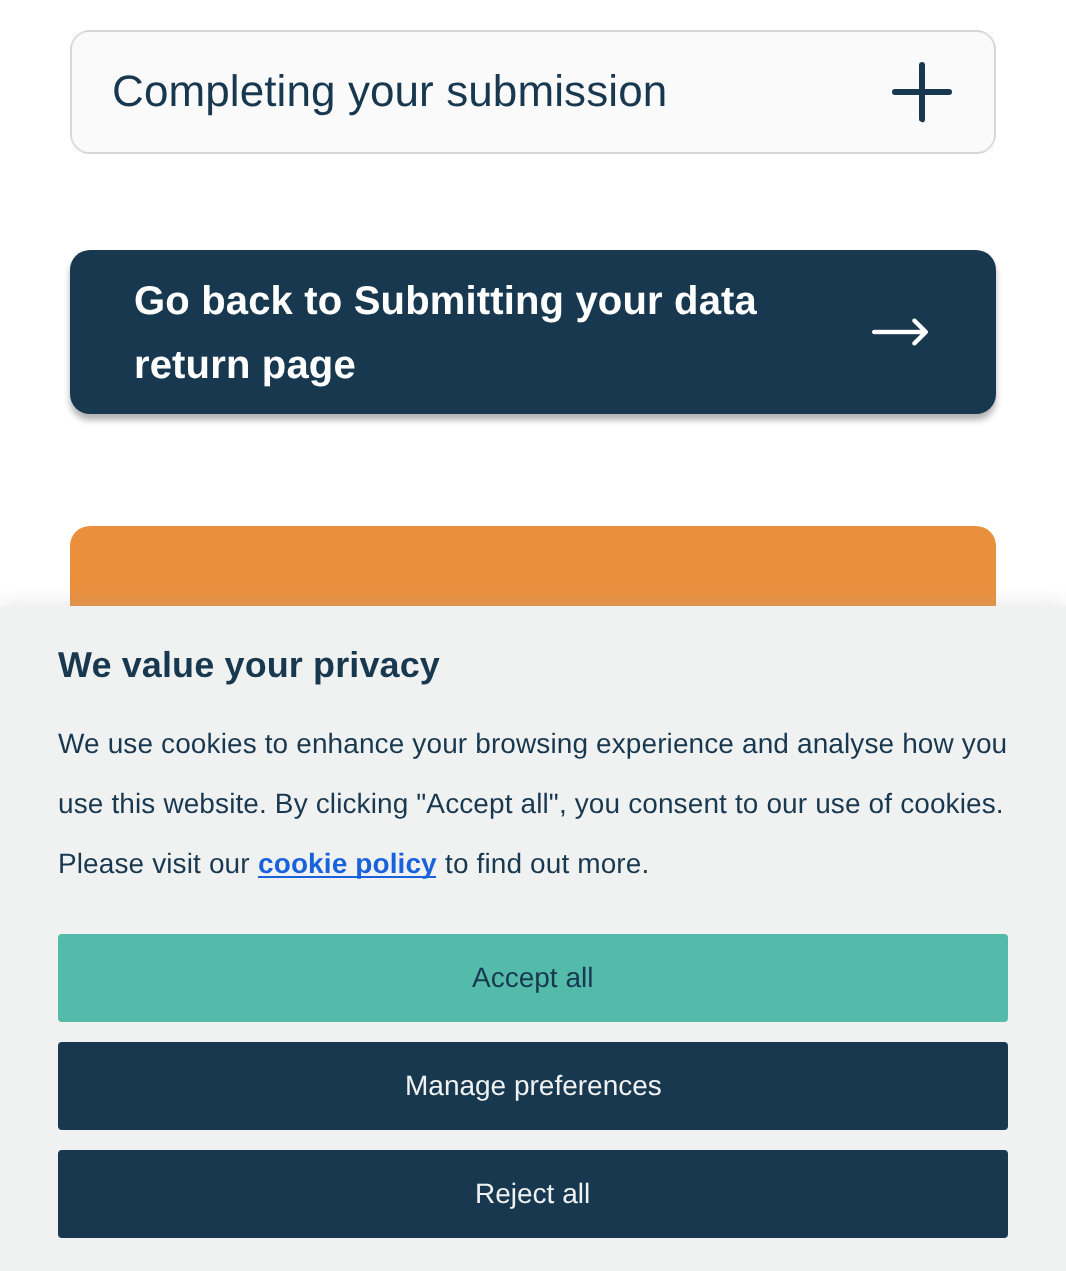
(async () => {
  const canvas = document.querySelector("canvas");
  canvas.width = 1066;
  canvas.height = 1271;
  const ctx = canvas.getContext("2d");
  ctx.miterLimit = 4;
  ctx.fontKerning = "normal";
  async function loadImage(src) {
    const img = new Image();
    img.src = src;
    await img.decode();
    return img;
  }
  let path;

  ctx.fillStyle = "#ffffff";
  ctx.fillRect(0, 0, 1066, 1271);
  ctx.beginPath();
  ctx.roundRect(71, 31, 924, 122, 19);
  ctx.strokeStyle = "#d6d6d6";
  ctx.lineWidth = 2;
  ctx.stroke();
  ctx.fillStyle = "rgba(240, 240, 242, 0.3)";
  ctx.fillRect(72, 32, 922, 120);
  ctx.fillStyle = "#183850";
  ctx.beginPath();
  ctx.roundRect(892, 89, 60, 6, 3);
  ctx.fill();
  path = new Path2D("M919 119V65C919 61 925 61 925 65V120L924 122C922 123 919 121 919 119Z");
  ctx.fill(path);
  ctx.fillStyle = "rgba(0, 0, 0, 0.3)";
  ctx.filter = "blur(3px)";
  ctx.beginPath();
  ctx.roundRect(70, 256, 926, 164, 20);
  ctx.fill();
  ctx.filter = "none";
  ctx.fillStyle = "#183850";
  ctx.beginPath();
  ctx.roundRect(70, 250, 926, 164, 20);
  ctx.fill();
  ctx.drawImage(await loadImage("img/1.png"), 872, 318, 56, 28);
  ctx.fillStyle = "#ea8f3c";
  ctx.beginPath();
  ctx.roundRect(70, 526, 926, 640, 20);
  ctx.fill();
  ctx.fillStyle = "rgba(172, 171, 171, 0.3)";
  ctx.filter = "blur(10px)";
  ctx.beginPath();
  ctx.rect(0, 604, 1066, 666);
  ctx.fill();
  ctx.filter = "none";
  ctx.fillStyle = "#f0f2f2";
  ctx.fillRect(0, 606, 1066, 665);
  ctx.fillStyle = "#1863dc";
  ctx.fillRect(258, 876, 178, 2);
  ctx.fillStyle = "#54bbab";
  ctx.beginPath();
  ctx.roundRect(60, 936, 946, 84, 2);
  ctx.fill();
  ctx.strokeStyle = "#54bbab";
  ctx.lineWidth = 4;
  ctx.stroke();
  ctx.fillStyle = "#183850";
  ctx.beginPath();
  ctx.roundRect(60, 1044, 946, 84, 2);
  ctx.fill();
  ctx.strokeStyle = "#183850";
  ctx.stroke();
  ctx.beginPath();
  ctx.roundRect(60, 1152, 946, 84, 2);
  ctx.fill();
  ctx.stroke();
  ctx.letterSpacing = "0.1px";
  ctx.font = "44px Liberation Sans";
  ctx.fillText("Completing your submission", 112, 106);
  ctx.letterSpacing = "0.15px";
  ctx.wordSpacing = "0.1px";
  ctx.font = "bold 40px Liberation Sans";
  ctx.fillStyle = "#ffffff";
  ctx.fillText("Go back to Submitting your data", 134, 314);
  ctx.fillText("return page", 134, 378);
  ctx.letterSpacing = "0.1px";
  ctx.font = "bold 36px Liberation Sans";
  ctx.fillStyle = "#183850";
  ctx.fillText("We value your privacy", 58, 677);
  ctx.font = "28px Liberation Sans";
  for (const [text, x, y] of [
    ["We use cookies to enhance your browsing experience and analyse how you", 58, 753],
    ["use this website. By clicking \"Accept all\", you consent to our use of cookies.", 58, 813],
    ["Please visit our", 58, 873],
  ]) {
    ctx.fillText(text, x, y);
  }
  ctx.font = "bold 28px Liberation Sans";
  ctx.fillStyle = "#1863dc";
  ctx.fillText("cookie policy", 258, 873);
  ctx.font = "28px Liberation Sans";
  ctx.fillStyle = "#183850";
  ctx.fillText("to find out more.", 445, 873);
  ctx.letterSpacing = "0px";
  ctx.wordSpacing = "0px";
  ctx.fillText("Accept all", 472, 987);
  ctx.fillStyle = "#f0f2f2";
  ctx.fillText("Manage preferences", 405, 1095);
  ctx.fillText("Reject all", 475, 1203);
})();
